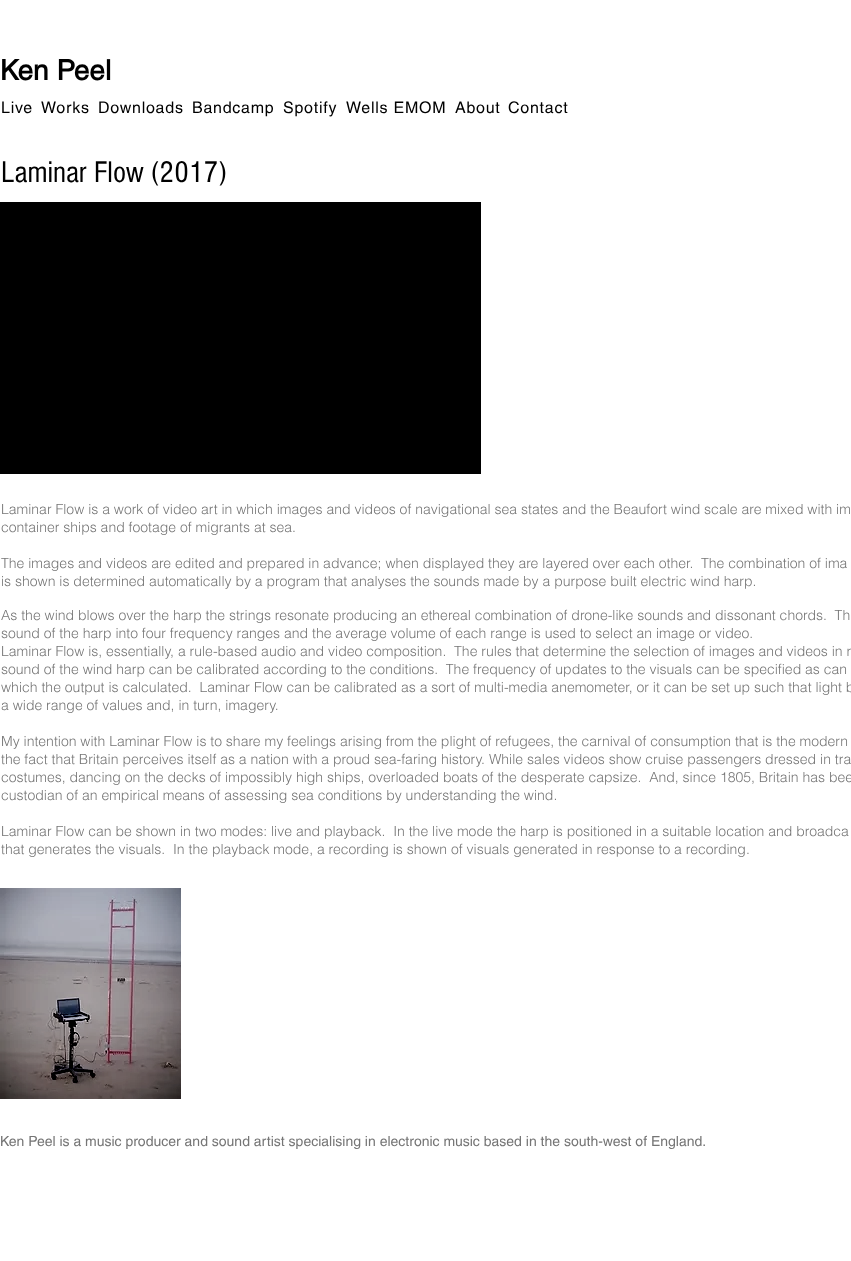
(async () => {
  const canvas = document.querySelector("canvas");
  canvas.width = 851;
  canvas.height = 1261;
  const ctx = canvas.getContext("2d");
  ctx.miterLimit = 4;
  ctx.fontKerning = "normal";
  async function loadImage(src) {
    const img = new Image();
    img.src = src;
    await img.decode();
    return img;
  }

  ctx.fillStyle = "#ffffff";
  ctx.fillRect(0, 0, 851, 1261);
  ctx.fillStyle = "#000000";
  ctx.fillRect(0, 202, 481, 272);
  ctx.drawImage(await loadImage("img/1.png"), 0, 888, 181, 211);
  ctx.font = "bold 28px helvetica";
  ctx.fillText("Ken Peel", 0, 80);
  ctx.letterSpacing = "0.75px";
  ctx.font = "16px helvetica";
  for (const [text, x, y] of [
    ["Live", 1, 113],
    ["Works", 41, 113],
    ["Downloads", 98, 113],
    ["Bandcamp", 192, 113],
    ["Spotify", 283, 113],
    ["Wells EMOM", 346, 113],
    ["About", 455, 113],
    ["Contact", 508, 113],
  ]) {
    ctx.fillText(text, x, y);
  }
  ctx.letterSpacing = "0px";
  ctx.font = "31px 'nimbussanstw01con'";
  ctx.fillText("Laminar Flow (2017)", 1, 182);
  ctx.font = "300 14px helvetica";
  ctx.fillStyle = "#757575";
  for (const [text, x, y] of [
    ["Laminar Flow is a work of video art in which images and videos of navigational sea states and the Beaufort wind scale are mixed with im", 1, 514],
    ["container ships and footage of migrants at sea.", 1, 532],
    ["The images and videos are edited and prepared in advance; when displayed they are layered over each other.  The combination of ima", 1, 568],
    ["is shown is determined automatically by a program that analyses the sounds made by a purpose built electric wind harp.", 1, 586],
    ["As the wind blows over the harp the strings resonate producing an ethereal combination of drone-like sounds and dissonant chords.  Th", 1, 620],
    ["sound of the harp into four frequency ranges and the average volume of each range is used to select an image or video.", 1, 638],
    ["Laminar Flow is, essentially, a rule-based audio and video composition.  The rules that determine the selection of images and videos in r", 1, 656],
    ["sound of the wind harp can be calibrated according to the conditions.  The frequency of updates to the visuals can be specified as can", 1, 674],
    ["which the output is calculated.  Laminar Flow can be calibrated as a sort of multi-media anemometer, or it can be set up such that light b", 1, 692],
    ["a wide range of values and, in turn, imagery.", 1, 710],
    ["My intention with Laminar Flow is to share my feelings arising from the plight of refugees, the carnival of consumption that is the modern", 1, 746],
    ["the fact that Britain perceives itself as a nation with a proud sea-faring history. While sales videos show cruise passengers dressed in tra", 1, 764],
    ["costumes, dancing on the decks of impossibly high ships, overloaded boats of the desperate capsize.  And, since 1805, Britain has bee", 1, 782],
    ["custodian of an empirical means of assessing sea conditions by understanding the wind.", 1, 800],
    ["Laminar Flow can be shown in two modes: live and playback.  In the live mode the harp is positioned in a suitable location and broadca", 1, 836],
    ["that generates the visuals.  In the playback mode, a recording is shown of visuals generated in response to a recording.", 1, 854],
  ]) {
    ctx.fillText(text, x, y);
  }
  ctx.font = "14px helvetica";
  ctx.fillText("Ken Peel is a music producer and sound artist specialising in electronic music based in the south-west of England.", 0, 1146);
})();
